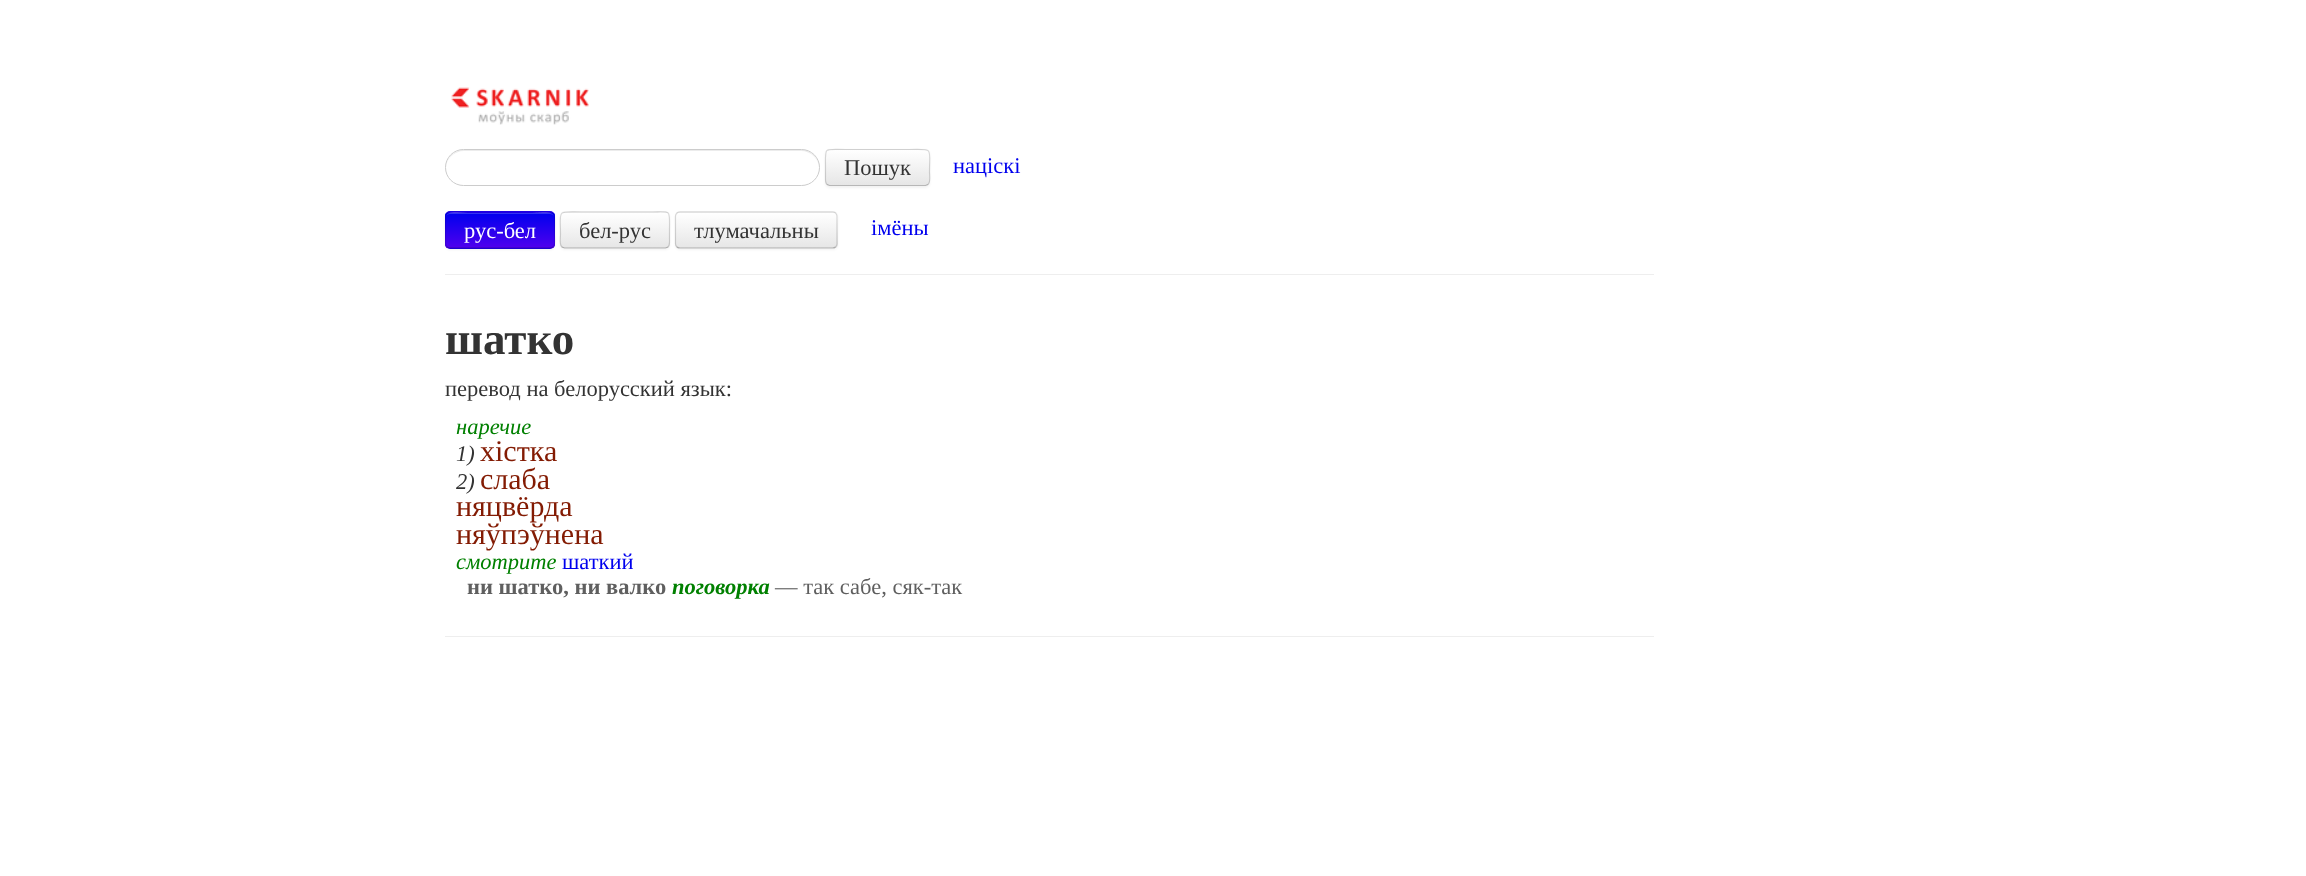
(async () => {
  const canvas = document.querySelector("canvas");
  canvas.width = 2306;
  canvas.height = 876;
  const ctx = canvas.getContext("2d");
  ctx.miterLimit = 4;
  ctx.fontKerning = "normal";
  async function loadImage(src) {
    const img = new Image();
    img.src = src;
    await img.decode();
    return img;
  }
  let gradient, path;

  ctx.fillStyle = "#ffffff";
  ctx.fillRect(0, 0, 2306, 876);
  ctx.drawImage(await loadImage("img/1.png"), 451, 87, 138, 38);
  ctx.fillStyle = "#ececec";
  path = new Path2D("M464 151H801C811 151 819 159 819 168C819 158 811 150 802 150H464C454 150 446 158 446 168C446 159 454 151 464 151Z");
  ctx.fill(path);
  ctx.beginPath();
  ctx.roundRect(445.5, 149.5, 374, 36, 18);
  ctx.strokeStyle = "#cccccc";
  ctx.stroke();
  ctx.fillStyle = "rgba(0, 0, 0, 0.05)";
  ctx.filter = "blur(1px)";
  ctx.beginPath();
  ctx.roundRect(825, 150, 105, 38, 5);
  ctx.fill();
  ctx.filter = "none";
  ctx.fillStyle = "#f5f5f5";
  ctx.beginPath();
  ctx.roundRect(825, 149, 105, 37, 5);
  ctx.fill();
  ctx.save();
  ctx.beginPath();
  ctx.roundRect(825, 149, 105, 37, 5);
  ctx.clip();
  gradient = ctx.createLinearGradient(878, 150, 878, 185);
  gradient.addColorStop(0, "#ffffff");
  gradient.addColorStop(1, "#e6e6e6");
  ctx.fillStyle = gradient;
  ctx.fillRect(825, 150, 105, 35);
  ctx.restore();
  path = new Path2D("M928 184.5L925.5 185.5H829.5L827 184.5");
  ctx.strokeStyle = "rgba(0, 0, 0, 0.25)";
  ctx.lineWidth = 1.2;
  ctx.stroke(path);
  path = new Path2D("M827 184.5C825 182.5 825.5 179 825.5 176.5V167.5C825.5 146 823 149.5 846 149.5H909C934 149.5 929.5 146.5 929.5 172C929.5 175 931 181.5 928 184.5");
  ctx.strokeStyle = "rgba(0, 0, 0, 0.15)";
  ctx.stroke(path);
  ctx.fillStyle = "rgba(0, 0, 0, 0.05)";
  ctx.filter = "blur(1px)";
  ctx.beginPath();
  ctx.roundRect(445, 213, 110, 37, 5);
  ctx.fill();
  ctx.filter = "none";
  ctx.fillStyle = "#2000ee";
  ctx.beginPath();
  ctx.roundRect(445, 211, 110, 38, 5);
  ctx.fill();
  ctx.save();
  ctx.beginPath();
  ctx.roundRect(445, 211, 110, 38, 5);
  ctx.clip();
  gradient = ctx.createLinearGradient(500, 213, 500, 248);
  gradient.addColorStop(0, "#0000ee");
  gradient.addColorStop(1, "#4f00ee");
  ctx.fillStyle = gradient;
  ctx.fillRect(445, 213, 110, 35);
  ctx.restore();
  ctx.fillStyle = "rgba(255, 255, 255, 0.2)";
  path = new Path2D("M450 214H550C552 214 554 215 554 218C554 209 537 213 533 213H467C463 213 446 209 446 218C446 215 448 214 450 214Z");
  ctx.fill(path);
  path = new Path2D("M553 247L550.5 248H449.5L447 247");
  ctx.strokeStyle = "rgba(0, 0, 0, 0.25)";
  ctx.stroke(path);
  path = new Path2D("M447 247C445 245 445.5 241.5 445.5 239V230C445.5 208 443 212 466.5 212H533.5C559 212 554.5 209 554.5 234.5C554.5 237.5 556 244 553 247");
  ctx.strokeStyle = "rgba(0, 0, 0, 0.1)";
  ctx.stroke(path);
  ctx.fillStyle = "rgba(0, 0, 0, 0.05)";
  ctx.filter = "blur(1px)";
  ctx.beginPath();
  ctx.roundRect(560, 213, 110, 37, 5);
  ctx.fill();
  ctx.filter = "none";
  ctx.fillStyle = "#f5f5f5";
  ctx.beginPath();
  ctx.roundRect(560, 211, 110, 38, 5);
  ctx.fill();
  ctx.save();
  ctx.beginPath();
  ctx.roundRect(560, 211, 110, 38, 5);
  ctx.clip();
  gradient = ctx.createLinearGradient(615, 213, 615, 248);
  gradient.addColorStop(0, "#ffffff");
  gradient.addColorStop(1, "#e6e6e6");
  ctx.fillStyle = gradient;
  ctx.fillRect(560, 213, 110, 35);
  ctx.restore();
  path = new Path2D("M668 247L665.5 248H564.5L562 247");
  ctx.strokeStyle = "rgba(0, 0, 0, 0.25)";
  ctx.stroke(path);
  path = new Path2D("M562 247C559 244 560.5 237.5 560.5 234.5C560.5 209 556 212 581.5 212H648.5C672 212 669.5 208 669.5 230V239C669.5 241.5 670 245 668 247");
  ctx.strokeStyle = "rgba(0, 0, 0, 0.15)";
  ctx.stroke(path);
  ctx.fillStyle = "rgba(0, 0, 0, 0.05)";
  ctx.filter = "blur(1px)";
  ctx.beginPath();
  ctx.roundRect(675, 213, 163, 37, 5);
  ctx.fill();
  ctx.filter = "none";
  ctx.fillStyle = "#f5f5f5";
  ctx.beginPath();
  ctx.roundRect(675, 211, 163, 38, 5);
  ctx.fill();
  ctx.save();
  ctx.beginPath();
  ctx.roundRect(675, 211, 163, 38, 5);
  ctx.clip();
  gradient = ctx.createLinearGradient(756, 213, 756, 248);
  gradient.addColorStop(0, "#ffffff");
  gradient.addColorStop(1, "#e6e6e6");
  ctx.fillStyle = gradient;
  ctx.fillRect(675, 213, 163, 35);
  ctx.restore();
  path = new Path2D("M835.5 247C835 247.5 833.5 248 832.5 248H680C679 248 677.5 247.5 677 247");
  ctx.strokeStyle = "rgba(0, 0, 0, 0.25)";
  ctx.stroke(path);
  path = new Path2D("M677 247C676 246 675.5 245 675.5 244V216C675.5 215 676 214 677 213C677.5 212.5 679 212 680 212H832.5C833.5 212 835 212.5 835.5 213C836.5 214 837 215 837 216V244C837 245 836.5 246 835.5 247");
  ctx.strokeStyle = "rgba(0, 0, 0, 0.15)";
  ctx.stroke(path);
  ctx.fillStyle = "#eeeeee";
  ctx.fillRect(445, 274, 1209, 1);
  ctx.fillRect(445, 636, 1209, 1);
  ctx.font = "22.5px Liberation Serif";
  ctx.fillStyle = "#333333";
  ctx.fillText("Пошук", 844, 175);
  ctx.fillStyle = "#0000ee";
  ctx.fillText("націскі", 953, 173);
  ctx.fillStyle = "#ffffff";
  ctx.fillText("рус-бел", 464, 238);
  ctx.fillStyle = "#333333";
  ctx.fillText("бел-рус", 579, 238);
  ctx.fillText("тлумачальны", 694, 238);
  ctx.fillStyle = "#0000ee";
  ctx.fillText("імёны", 871, 235);
  ctx.font = "bold 45px Liberation Serif";
  ctx.fillStyle = "#333333";
  ctx.fillText("шатко", 445, 354);
  ctx.font = "22.5px Liberation Serif";
  ctx.fillText("перевод на белорусский язык:", 445, 396);
  ctx.font = "italic 22.5px Liberation Serif";
  ctx.fillStyle = "#008000";
  ctx.fillText("наречие", 456, 434);
  ctx.fillStyle = "#333333";
  ctx.fillText("1)", 456, 461);
  ctx.font = "30px Liberation Serif";
  ctx.fillStyle = "#831b03";
  ctx.fillText("хістка", 480, 461);
  ctx.font = "italic 22.5px Liberation Serif";
  ctx.fillStyle = "#333333";
  ctx.fillText("2)", 456, 489);
  ctx.font = "30px Liberation Serif";
  ctx.fillStyle = "#831b03";
  for (const [text, x, y] of [
    ["слаба", 480, 489],
    ["няцвёрда", 456, 516],
    ["няўпэўнена", 456, 544],
  ]) {
    ctx.fillText(text, x, y);
  }
  ctx.font = "italic 22.5px Liberation Serif";
  ctx.fillStyle = "#008000";
  ctx.fillText("смотрите", 456, 569);
  ctx.font = "22.5px Liberation Serif";
  ctx.fillStyle = "#0000ee";
  ctx.fillText("шаткий", 562, 569);
  ctx.font = "bold 22.5px Liberation Serif";
  ctx.fillStyle = "#5f5f5f";
  ctx.fillText("ни шатко, ни валко", 467, 594);
  ctx.font = "italic bold 22.5px Liberation Serif";
  ctx.fillStyle = "#008000";
  ctx.fillText("поговорка", 672, 594);
  ctx.font = "22.5px Liberation Serif";
  ctx.fillStyle = "#5f5f5f";
  ctx.fillText("— так сабе, сяк-так", 775, 594);
})();
